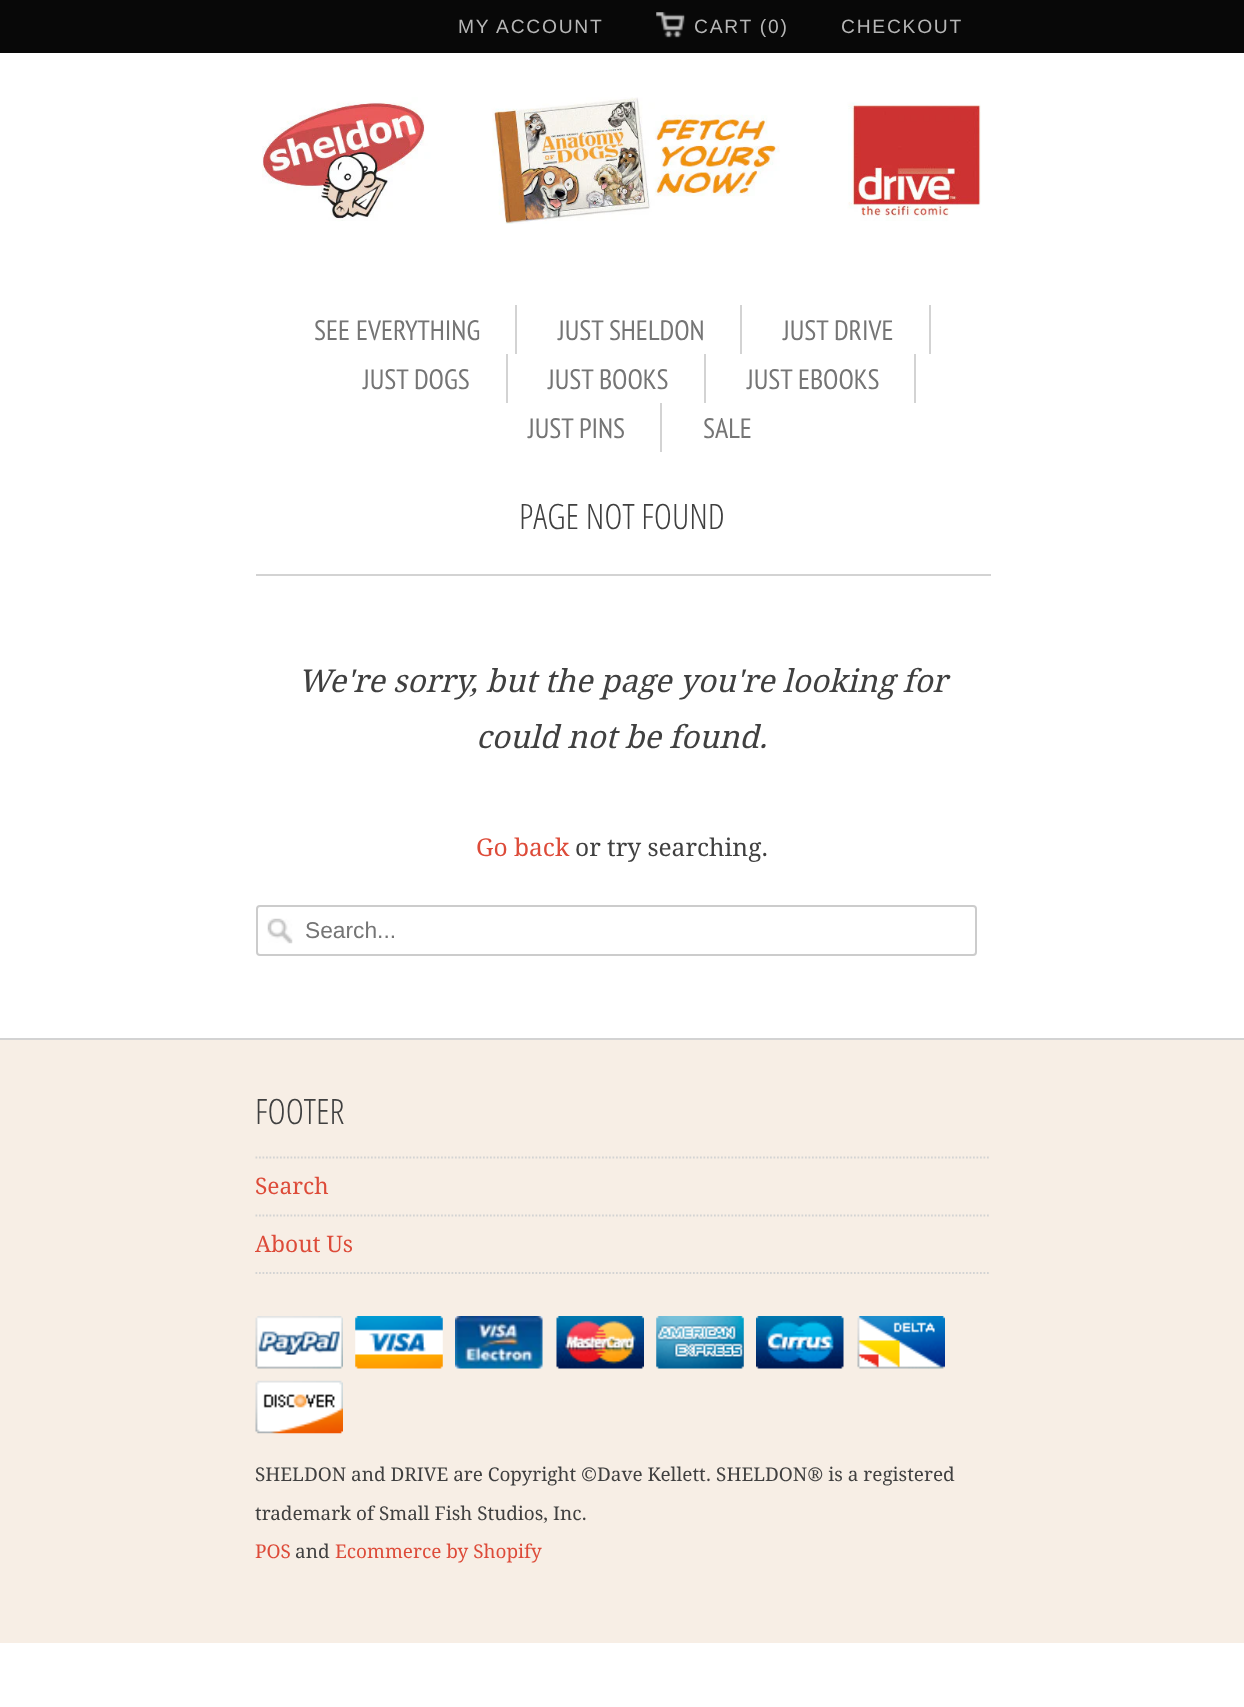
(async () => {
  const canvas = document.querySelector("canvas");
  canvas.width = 1244;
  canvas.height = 1707;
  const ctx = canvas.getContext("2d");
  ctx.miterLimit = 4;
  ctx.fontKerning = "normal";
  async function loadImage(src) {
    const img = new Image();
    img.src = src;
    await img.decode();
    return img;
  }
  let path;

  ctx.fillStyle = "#ffffff";
  ctx.fillRect(0, 0, 1244, 1707);
  ctx.fillStyle = "#080808";
  ctx.fillRect(0, 0, 1244, 53);
  ctx.drawImage(await loadImage("img/1.png"), 656, 12, 29, 26);
  ctx.drawImage(await loadImage("img/2.png"), 262, 97, 719, 127);
  for (const [x, y, w, h, color] of [
    [515, 305, 2, 49, "#d3d3d3"],
    [740, 305, 2, 49, "#d3d3d3"],
    [929, 305, 2, 49, "#d3d3d3"],
    [506, 354, 2, 49, "#d3d3d3"],
    [704, 354, 2, 49, "#d3d3d3"],
    [914, 354, 2, 49, "#d3d3d3"],
    [660, 403, 2, 49, "#d3d3d3"],
    [256, 574, 735, 2, "#d3d3d3"],
  ]) {
    ctx.fillStyle = color;
    ctx.fillRect(x, y, w, h);
  }
  ctx.drawImage(await loadImage("img/3.png"), 267, 918, 26, 26);
  ctx.beginPath();
  ctx.roundRect(257, 906, 719, 49, 3);
  ctx.strokeStyle = "#cccccc";
  ctx.lineWidth = 2;
  ctx.stroke();
  ctx.fillStyle = "#f7eee5";
  ctx.fillRect(0, 1040, 1244, 603);
  ctx.fillStyle = "#d3d3d3";
  ctx.fillRect(0, 1038, 1244, 2);
  path = new Path2D("M255.5 1157.5H990.5");
  ctx.strokeStyle = "#d3d3d3";
  ctx.lineWidth = 1.8;
  ctx.setLineDash([1.75, 1.75]);
  ctx.stroke(path);
  path = new Path2D("M255.5 1215.5H990.5");
  ctx.stroke(path);
  path = new Path2D("M255.5 1273H990.5");
  ctx.stroke(path);
  ctx.drawImage(await loadImage("img/4.png"), 255, 1316, 88, 53);
  ctx.drawImage(await loadImage("img/5.png"), 355, 1316, 88, 53);
  ctx.drawImage(await loadImage("img/6.png"), 455, 1316, 88, 53);
  ctx.drawImage(await loadImage("img/7.png"), 556, 1316, 88, 53);
  ctx.drawImage(await loadImage("img/8.png"), 656, 1316, 88, 53);
  ctx.drawImage(await loadImage("img/9.png"), 756, 1316, 88, 53);
  ctx.drawImage(await loadImage("img/10.png"), 857, 1316, 88, 53);
  ctx.drawImage(await loadImage("img/11.png"), 255, 1380, 88, 54);
  ctx.letterSpacing = "1.75px";
  ctx.font = "19.25px Liberation Sans";
  ctx.fillStyle = "#b6b6b6";
  for (const [text, x, y] of [
    ["MY ACCOUNT", 458, 33],
    ["CART (0)", 694, 33],
    ["CHECKOUT", 841, 33],
  ]) {
    ctx.fillText(text, x, y);
  }
  ctx.letterSpacing = "0px";
  ctx.font = "28px PT Sans Narrow";
  ctx.fillStyle = "#757575";
  for (const [text, x, y] of [
    ["SEE EVERYTHING", 314, 340],
    ["JUST SHELDON", 558, 340],
    ["JUST DRIVE", 783, 340],
    ["JUST DOGS", 363, 389],
    ["JUST BOOKS", 548, 389],
    ["JUST EBOOKS", 747, 389],
    ["JUST PINS", 528, 438],
    ["SALE", 703, 438],
  ]) {
    ctx.fillText(text, x, y);
  }
  ctx.font = "300 35px Open Sans Condensed";
  ctx.fillStyle = "#404040";
  ctx.fillText("PAGE NOT FOUND", 519, 529);
  ctx.font = "italic 31.5px Droid Serif";
  ctx.fillText("We're sorry, but the page you're looking for", 298, 692);
  ctx.fillText("could not be found.", 476, 748);
  ctx.font = "24.5px Droid Serif";
  ctx.fillStyle = "#dd4b39";
  ctx.fillText("Go back", 476, 856);
  ctx.fillStyle = "#404040";
  ctx.fillText("or try searching.", 575, 856);
  ctx.font = "22.75px Liberation Sans";
  ctx.fillStyle = "#757575";
  ctx.fillText("Search...", 305, 938);
  ctx.font = "300 35px Open Sans Condensed";
  ctx.fillStyle = "#404040";
  ctx.fillText("FOOTER", 255, 1124);
  ctx.font = "22.75px Droid Serif";
  ctx.fillStyle = "#dd4b39";
  ctx.fillText("Search", 255, 1194);
  ctx.fillText("About Us", 255, 1252);
  ctx.font = "18.95px Droid Serif";
  ctx.fillStyle = "#404040";
  ctx.fillText("SHELDON and DRIVE are Copyright ©Dave Kellett. SHELDON® is a registered", 255, 1481);
  ctx.fillText("trademark of Small Fish Studios, Inc.", 255, 1520);
  ctx.fillStyle = "#dd4b39";
  ctx.fillText("POS", 255, 1558);
  ctx.fillStyle = "#404040";
  ctx.fillText("and", 295, 1558);
  ctx.fillStyle = "#dd4b39";
  ctx.fillText("Ecommerce by Shopify", 335, 1558);
})();
